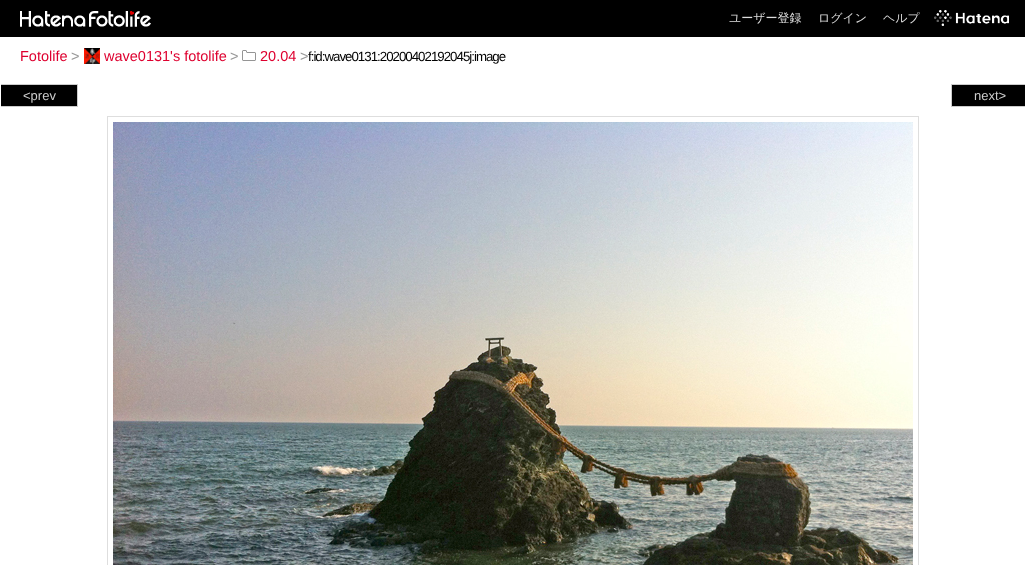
(async () => {
  const canvas = document.querySelector("canvas");
  canvas.width = 1025;
  canvas.height = 565;
  const ctx = canvas.getContext("2d");
  ctx.miterLimit = 4;
  ctx.fontKerning = "normal";
  async function loadImage(src) {
    const img = new Image();
    img.src = src;
    await img.decode();
    return img;
  }

  ctx.fillStyle = "#ffffff";
  ctx.fillRect(0, 0, 1025, 565);
  ctx.fillStyle = "#000000";
  ctx.fillRect(0, 0, 1025, 37);
  ctx.drawImage(await loadImage("img/1.png"), 20, 11, 66, 16);
  ctx.drawImage(await loadImage("img/2.png"), 89, 11, 62, 16);
  ctx.drawImage(await loadImage("img/3.png"), 934, 10, 75, 16);
  ctx.drawImage(await loadImage("img/4.png"), 84, 48, 16, 16);
  ctx.drawImage(await loadImage("img/5.png"), 242, 50, 14, 11);
  for (const [x, y, w, h, color] of [
    [1, 85, 76, 21, "#000000"],
    [1, 84, 77, 1, "#cccccc"],
    [77, 84, 1, 23, "#cccccc"],
    [1, 106, 77, 1, "#cccccc"],
    [952, 85, 73, 21, "#000000"],
    [951, 84, 74, 1, "#cccccc"],
    [951, 106, 74, 1, "#cccccc"],
    [951, 84, 1, 23, "#cccccc"],
  ]) {
    ctx.fillStyle = color;
    ctx.fillRect(x, y, w, h);
  }
  ctx.strokeStyle = "#dedede";
  ctx.strokeRect(107.5, 116.5, 811, 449);
  ctx.drawImage(await loadImage("img/6.png"), 113, 122, 800, 443);
  ctx.font = "500 12px WenQuanYi Zen Hei";
  ctx.fillStyle = "#dddddd";
  for (const [text, x, y] of [
    ["ユーザー登録", 729, 22],
    ["ログイン", 818, 22],
    ["ヘルプ", 883, 22],
  ]) {
    ctx.fillText(text, x, y);
  }
  ctx.font = "14.5px Liberation Sans";
  ctx.fillStyle = "#de002f";
  ctx.fillText("Fotolife", 20, 61);
  ctx.fillStyle = "#999999";
  ctx.fillText(">", 71, 61);
  ctx.fillStyle = "#de002f";
  ctx.fillText("wave0131's fotolife", 104, 61);
  ctx.fillStyle = "#999999";
  ctx.fillText(">", 230, 61);
  ctx.fillStyle = "#de002f";
  ctx.fillText("20.04", 260, 61);
  ctx.fillStyle = "#999999";
  ctx.fillText(">", 300, 61);
  ctx.letterSpacing = "-1px";
  ctx.font = "13.3px Liberation Sans";
  ctx.fillStyle = "#000000";
  ctx.fillText("f:id:wave0131:20200402192045j:image", 308, 61);
  ctx.letterSpacing = "0px";
  ctx.font = "13px Liberation Sans";
  ctx.fillStyle = "#cccccc";
  ctx.fillText("<prev", 23, 100);
  ctx.fillText("next>", 974, 100);
})();
